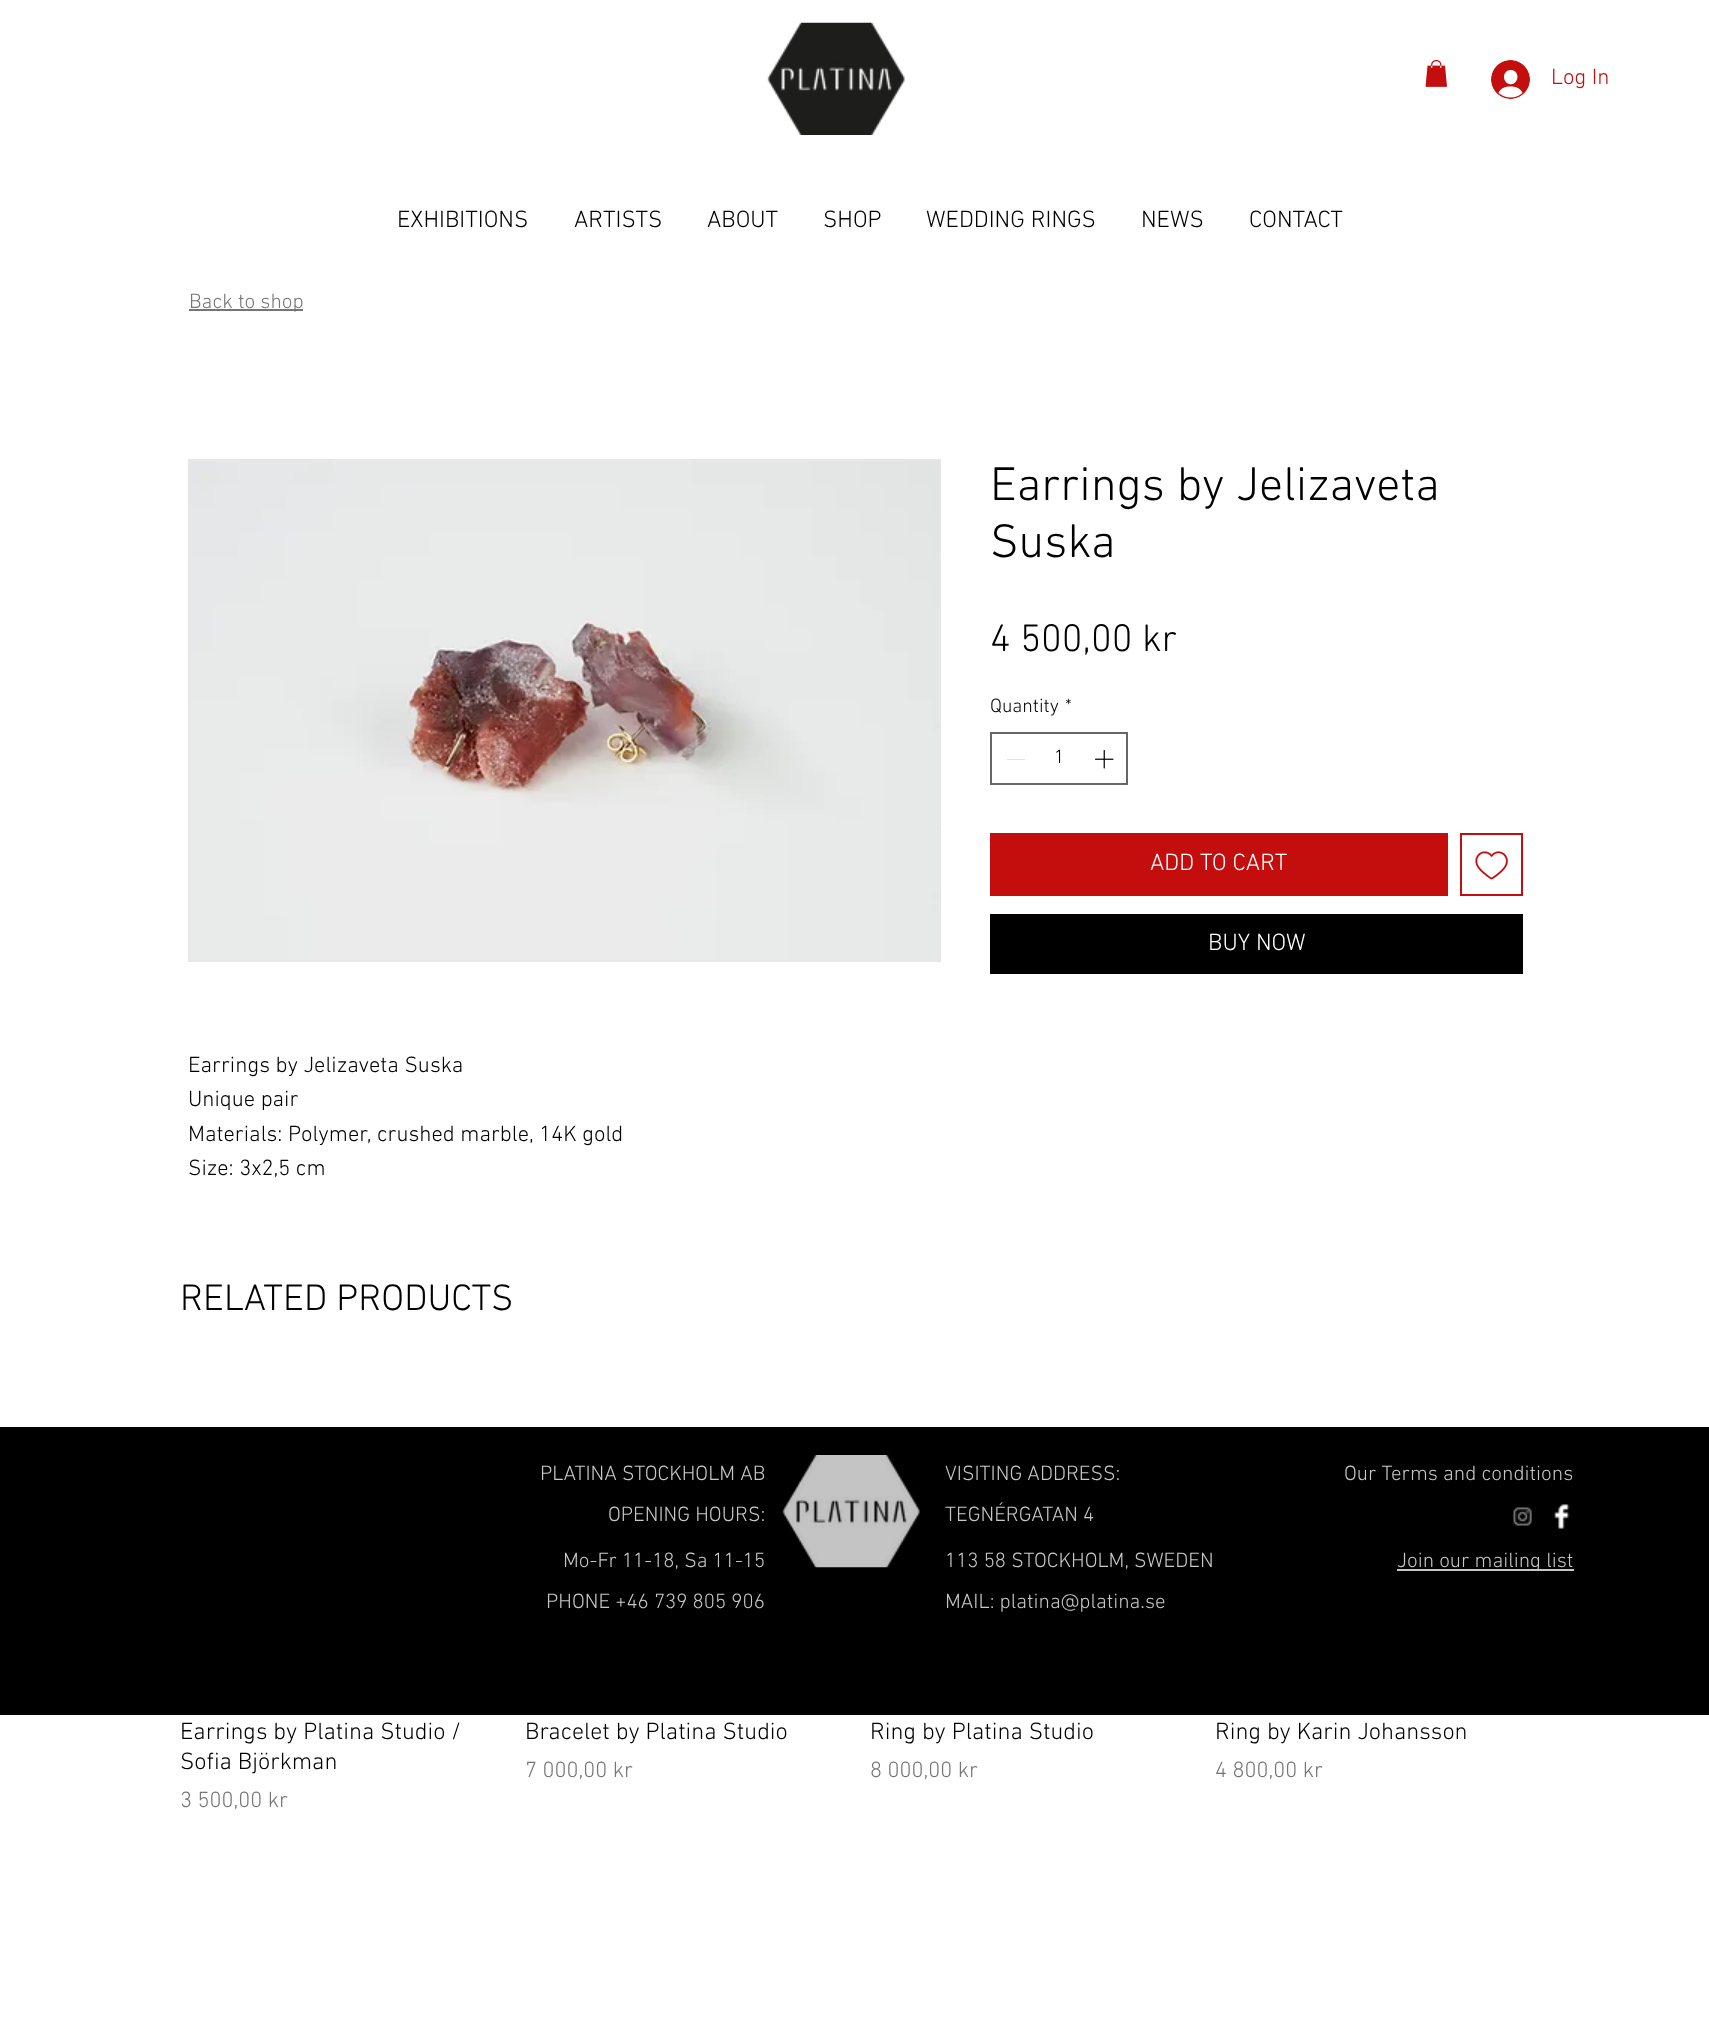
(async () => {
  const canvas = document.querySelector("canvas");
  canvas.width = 1709;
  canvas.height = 2030;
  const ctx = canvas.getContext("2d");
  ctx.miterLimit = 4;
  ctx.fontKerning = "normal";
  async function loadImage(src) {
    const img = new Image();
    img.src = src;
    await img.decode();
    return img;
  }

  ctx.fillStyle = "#ffffff";
  ctx.fillRect(0, 0, 1709, 2030);
  ctx.drawImage(await loadImage("img/1.png"), 767, 22, 138, 113);
  ctx.drawImage(await loadImage("img/2.png"), 1425, 60, 22, 27);
  ctx.drawImage(await loadImage("img/3.png"), 1491, 60, 39, 39);
  ctx.fillStyle = "#757575";
  ctx.fillRect(189, 309, 114, 2);
  ctx.strokeStyle = "#666666";
  ctx.lineWidth = 2;
  ctx.strokeRect(991, 733, 136, 51);
  ctx.fillStyle = "#e3e3e3";
  ctx.fillRect(1007, 759, 18, 1);
  ctx.drawImage(await loadImage("img/4.png"), 1095, 750, 19, 19);
  ctx.fillStyle = "#c40e0e";
  ctx.fillRect(990, 833, 458, 63);
  ctx.strokeStyle = "#c40e0e";
  ctx.strokeRect(1461, 834, 61, 61);
  ctx.drawImage(await loadImage("img/5.png"), 1475, 851, 33, 29);
  ctx.fillStyle = "#000000";
  ctx.fillRect(990, 914, 533, 60);
  ctx.strokeStyle = "#e8e6e6";
  ctx.strokeRect(189, 460, 751, 501);
  ctx.drawImage(await loadImage("img/6.png"), 189, 461, 750, 499);
  ctx.fillRect(0, 1427, 1709, 288);
  ctx.drawImage(await loadImage("img/7.png"), 782, 1455, 138, 113);
  ctx.drawImage(await loadImage("img/8.png"), 1512, 1506, 20, 20);
  ctx.drawImage(await loadImage("img/9.png"), 1553, 1504, 17, 25);
  ctx.fillStyle = "#c7c7c7";
  ctx.fillRect(1397, 1569, 177, 2);
  ctx.font = "300 22.5px 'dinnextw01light'";
  ctx.fillStyle = "#c40e0e";
  ctx.fillText("Log In", 1551, 84);
  ctx.font = "300 24px 'dinnextw01light'";
  ctx.fillStyle = "#000000";
  for (const [text, x, y] of [
    ["EXHIBITIONS", 397, 227],
    ["ARTISTS", 574, 227],
    ["ABOUT", 707, 227],
    ["SHOP", 823, 227],
    ["WEDDING RINGS", 926, 227],
    ["NEWS", 1141, 227],
    ["CONTACT", 1249, 227],
  ]) {
    ctx.fillText(text, x, y);
  }
  ctx.font = "300 21px 'dinnextw01light'";
  ctx.fillStyle = "#757575";
  ctx.fillText("Back to shop", 189, 308);
  ctx.font = "300 48px 'dinnextw01light'";
  ctx.fillStyle = "#000000";
  ctx.fillText("Earrings by Jelizaveta", 990, 500);
  ctx.fillText("Suska", 990, 557);
  ctx.font = "300 39px 'dinnextw01light'";
  ctx.fillText("4 500,00 kr", 990, 651);
  ctx.font = "300 19.5px 'dinnextw01light'";
  for (const [text, x, y] of [
    ["Quantity", 990, 712],
    ["*", 1065, 712],
    ["1", 1054, 763],
  ]) {
    ctx.fillText(text, x, y);
  }
  ctx.font = "300 24px 'dinnextw01light'";
  ctx.fillStyle = "#ffffff";
  ctx.fillText("ADD TO CART", 1150, 870);
  ctx.fillText("BUY NOW", 1208, 950);
  ctx.font = "300 22.5px 'dinnextw01light'";
  ctx.fillStyle = "#000000";
  for (const [text, x, y] of [
    ["Earrings by Jelizaveta Suska", 188, 1072],
    ["Unique pair", 188, 1106],
    ["Materials: Polymer, crushed marble, 14K gold", 188, 1141],
    ["Size: 3x2,5 cm", 188, 1175],
  ]) {
    ctx.fillText(text, x, y);
  }
  ctx.font = "300 37.5px 'dinnextw01light'";
  ctx.fillText("RELATED PRODUCTS", 180, 1310);
  ctx.font = "300 24px 'dinnextw01light'";
  ctx.fillText("Earrings by Platina Studio /", 180, 1739);
  ctx.fillText("Sofia Björkman", 180, 1769);
  ctx.font = "300 22.5px 'dinnextw01light'";
  ctx.fillStyle = "#757575";
  ctx.fillText("3 500,00 kr", 180, 1807);
  ctx.font = "300 24px 'dinnextw01light'";
  ctx.fillStyle = "#000000";
  ctx.fillText("Bracelet by Platina Studio", 525, 1739);
  ctx.font = "300 22.5px 'dinnextw01light'";
  ctx.fillStyle = "#757575";
  ctx.fillText("7 000,00 kr", 525, 1777);
  ctx.font = "300 24px 'dinnextw01light'";
  ctx.fillStyle = "#000000";
  ctx.fillText("Ring by Platina Studio", 870, 1739);
  ctx.font = "300 22.5px 'dinnextw01light'";
  ctx.fillStyle = "#757575";
  ctx.fillText("8 000,00 kr", 870, 1777);
  ctx.font = "300 24px 'dinnextw01light'";
  ctx.fillStyle = "#000000";
  ctx.fillText("Ring by Karin Johansson", 1215, 1739);
  ctx.font = "300 22.5px 'dinnextw01light'";
  ctx.fillStyle = "#757575";
  ctx.fillText("4 800,00 kr", 1215, 1777);
  ctx.font = "300 21px 'dinnextw01light'";
  ctx.fillStyle = "#c7c7c7";
  for (const [text, x, y] of [
    ["PLATINA STOCKHOLM AB", 540, 1480],
    ["VISITING ADDRESS:", 945, 1480],
    ["Our Terms and conditions", 1344, 1480],
    ["OPENING HOURS:", 608, 1521],
    ["TEGNÉRGATAN 4", 945, 1521],
    ["Mo-Fr 11-18, Sa 11-15", 563, 1567],
    ["113 58 STOCKHOLM, SWEDEN", 945, 1567],
    ["Join our mailing list", 1397, 1567],
    ["PHONE +46 739 805 906", 546, 1608],
    ["MAIL: platina@platina.se", 945, 1608],
  ]) {
    ctx.fillText(text, x, y);
  }
})();
